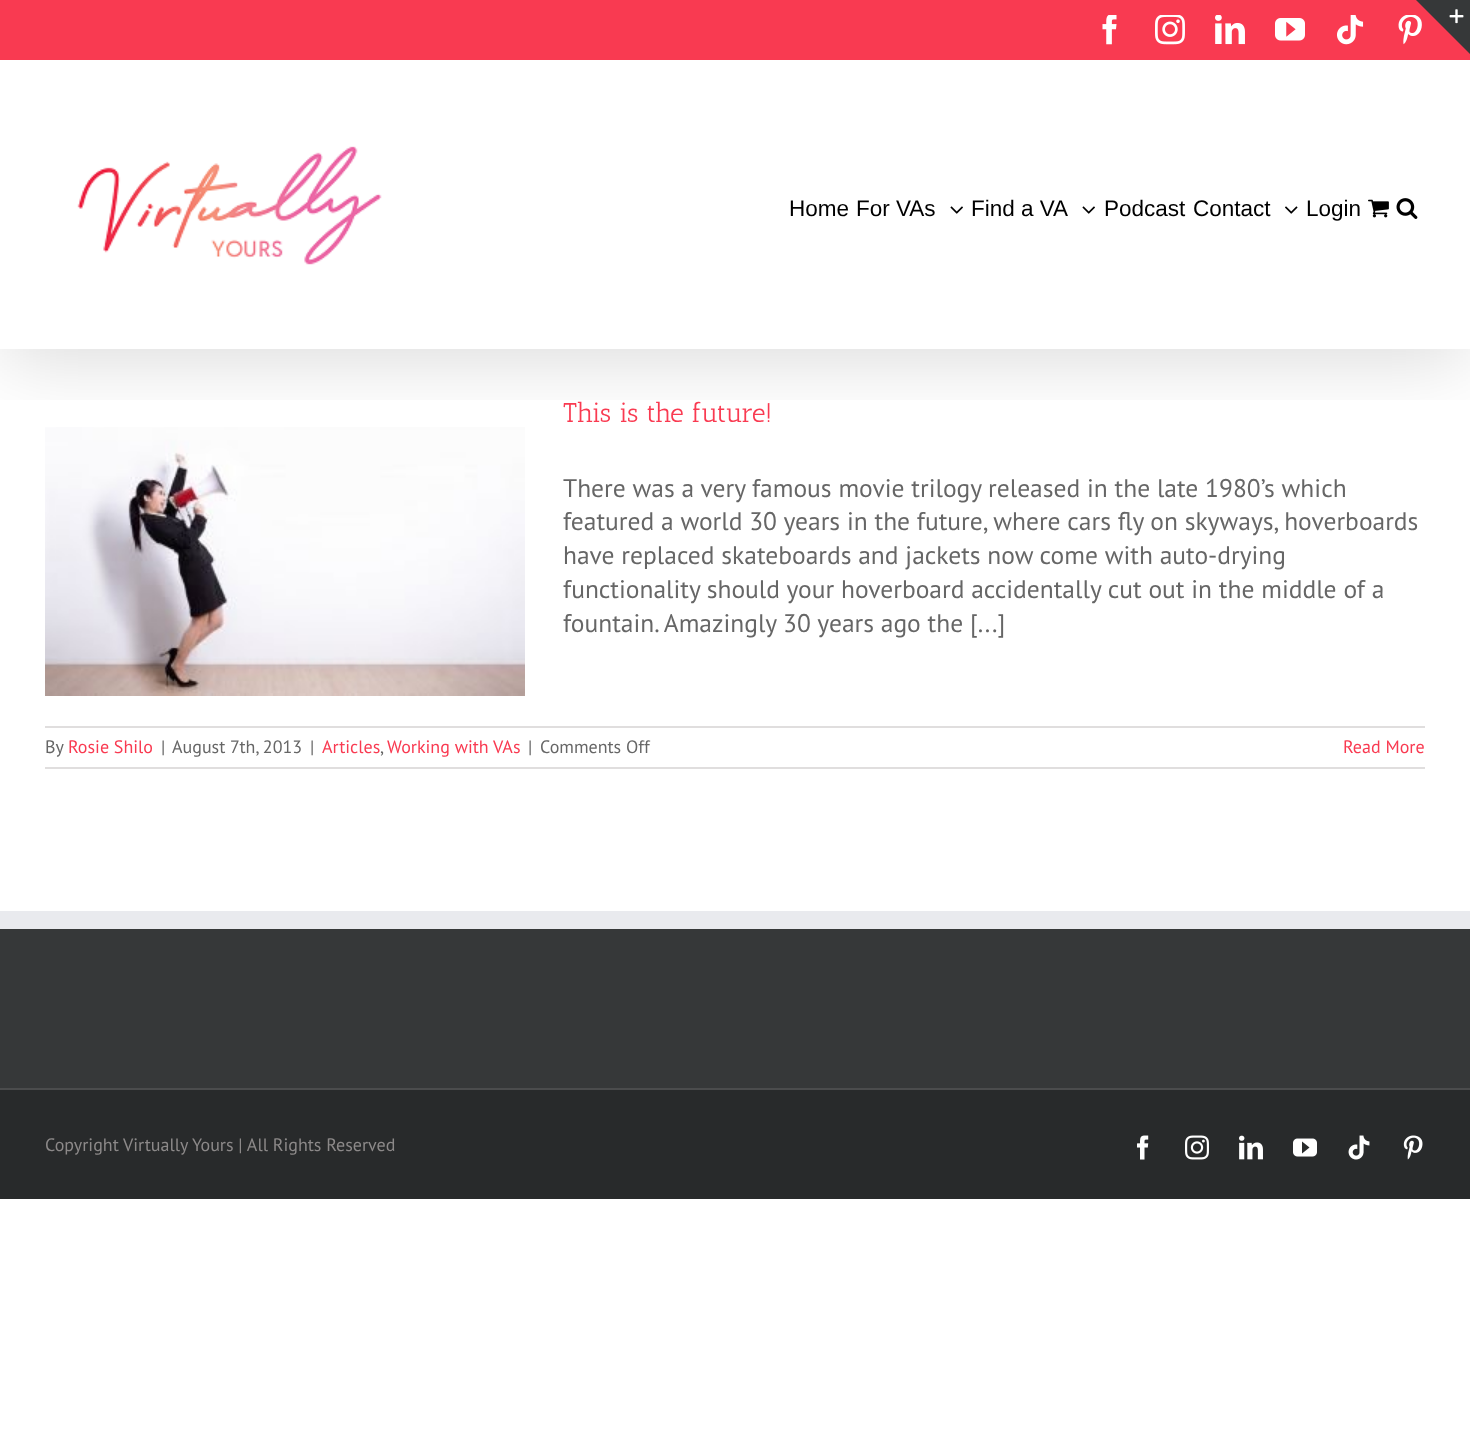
(async () => {
  const canvas = document.querySelector("canvas");
  canvas.width = 1470;
  canvas.height = 1447;
  const ctx = canvas.getContext("2d");
  ctx.miterLimit = 4;
  ctx.fontKerning = "normal";
  async function loadImage(src) {
    const img = new Image();
    img.src = src;
    await img.decode();
    return img;
  }
  let path;

  ctx.fillStyle = "#ffffff";
  ctx.fillRect(0, 0, 1470, 1447);
  ctx.drawImage(await loadImage("img/13.png"), 45, 427, 480, 269);
  ctx.save();
  ctx.beginPath();
  ctx.rect(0, 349, 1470, 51);
  ctx.clip();
  ctx.fillStyle = "rgba(0, 0, 0, 0.14)";
  ctx.filter = "blur(37.5px)";
  ctx.beginPath();
  ctx.rect(3, 18, 1464, 342);
  ctx.fill();
  ctx.filter = "none";
  ctx.restore();
  ctx.fillStyle = "#f93a51";
  ctx.fillRect(0, 0, 1470, 60);
  ctx.drawImage(await loadImage("img/7.png"), 1398, 15, 24, 30);
  ctx.fillStyle = "#363839";
  path = new Path2D("M1416 0H1470V54Z");
  ctx.fill(path);
  ctx.drawImage(await loadImage("img/1.png"), 1449, 9, 15, 15);
  ctx.drawImage(await loadImage("img/2.png"), 1102, 15, 15, 30);
  ctx.drawImage(await loadImage("img/3.png"), 1155, 15, 30, 30);
  ctx.drawImage(await loadImage("img/4.png"), 1215, 15, 30, 30);
  ctx.drawImage(await loadImage("img/5.png"), 1275, 18, 30, 23);
  ctx.drawImage(await loadImage("img/6.png"), 1337, 15, 27, 30);
  ctx.fillStyle = "#ffffff";
  ctx.fillRect(0, 348, 1470, 1);
  ctx.drawImage(await loadImage("img/8.png"), 77, 146, 305, 119);
  ctx.drawImage(await loadImage("img/9.png"), 950, 206, 13, 8);
  ctx.drawImage(await loadImage("img/9.png"), 1082, 206, 13, 8);
  ctx.drawImage(await loadImage("img/10.png"), 1285, 206, 13, 8);
  ctx.drawImage(await loadImage("img/11.png"), 1368, 199, 21, 19);
  ctx.drawImage(await loadImage("img/12.png"), 1396, 198, 22, 21);
  for (const [x, y, w, h, color] of [
    [45, 726, 1380, 2, "#e0dede"],
    [45, 767, 1380, 2, "#e0dede"],
    [0, 929, 1470, 159, "#363839"],
    [0, 911, 1470, 18, "#e9eaee"],
    [0, 1090, 1470, 109, "#282a2b"],
    [0, 1088, 1470, 2, "#4b4c4d"],
  ]) {
    ctx.fillStyle = color;
    ctx.fillRect(x, y, w, h);
  }
  ctx.drawImage(await loadImage("img/14.png"), 1137, 1135, 12, 25);
  ctx.drawImage(await loadImage("img/15.png"), 1185, 1135, 24, 25);
  ctx.drawImage(await loadImage("img/16.png"), 1239, 1135, 24, 25);
  ctx.drawImage(await loadImage("img/17.png"), 1293, 1138, 24, 19);
  ctx.drawImage(await loadImage("img/18.png"), 1348, 1135, 22, 25);
  ctx.drawImage(await loadImage("img/19.png"), 1403, 1135, 20, 25);
  ctx.font = "22.5px Liberation Sans";
  ctx.fillStyle = "#000000";
  for (const [text, x, y] of [
    ["Home", 789, 216],
    ["For VAs", 856, 216],
    ["Find a VA", 971, 216],
    ["Podcast", 1104, 216],
    ["Contact", 1193, 216],
    ["Login", 1306, 216],
  ]) {
    ctx.fillText(text, x, y);
  }
  ctx.font = "27px Antic Slab";
  ctx.fillStyle = "#f93a51";
  ctx.fillText("This is the future!", 563, 422);
  ctx.font = "25.5px PT Sans";
  ctx.fillStyle = "#666666";
  for (const [text, x, y] of [
    ["There was a very famous movie trilogy released in the late 1980’s which", 563, 497],
    ["featured a world 30 years in the future, where cars fly on skyways, hoverboards", 563, 530],
    ["have replaced skateboards and jackets now come with auto-drying", 563, 564],
    ["functionality should your hoverboard accidentally cut out in the middle of a", 563, 598],
    ["fountain. Amazingly 30 years ago the [...]", 563, 632],
  ]) {
    ctx.fillText(text, x, y);
  }
  ctx.font = "18px PT Sans";
  ctx.fillText("By", 45, 753);
  ctx.fillStyle = "#f93a51";
  ctx.fillText("Rosie Shilo", 68, 753);
  ctx.fillStyle = "#666666";
  for (const [text, x, y] of [
    ["|", 161, 753],
    ["August 7th, 2013", 172, 753],
    ["|", 310, 753],
  ]) {
    ctx.fillText(text, x, y);
  }
  ctx.fillStyle = "#f93a51";
  ctx.fillText("Articles", 322, 753);
  ctx.fillStyle = "#666666";
  ctx.fillText(",", 380, 753);
  ctx.fillStyle = "#f93a51";
  ctx.fillText("Working with VAs", 387, 753);
  ctx.fillStyle = "#666666";
  ctx.fillText("|", 528, 753);
  ctx.fillText("Comments Off", 540, 753);
  ctx.fillStyle = "#f93a51";
  ctx.fillText("Read More", 1343, 753);
  ctx.fillStyle = "#8c8989";
  ctx.fillText("Copyright Virtually Yours | All Rights Reserved", 45, 1151);
})();
